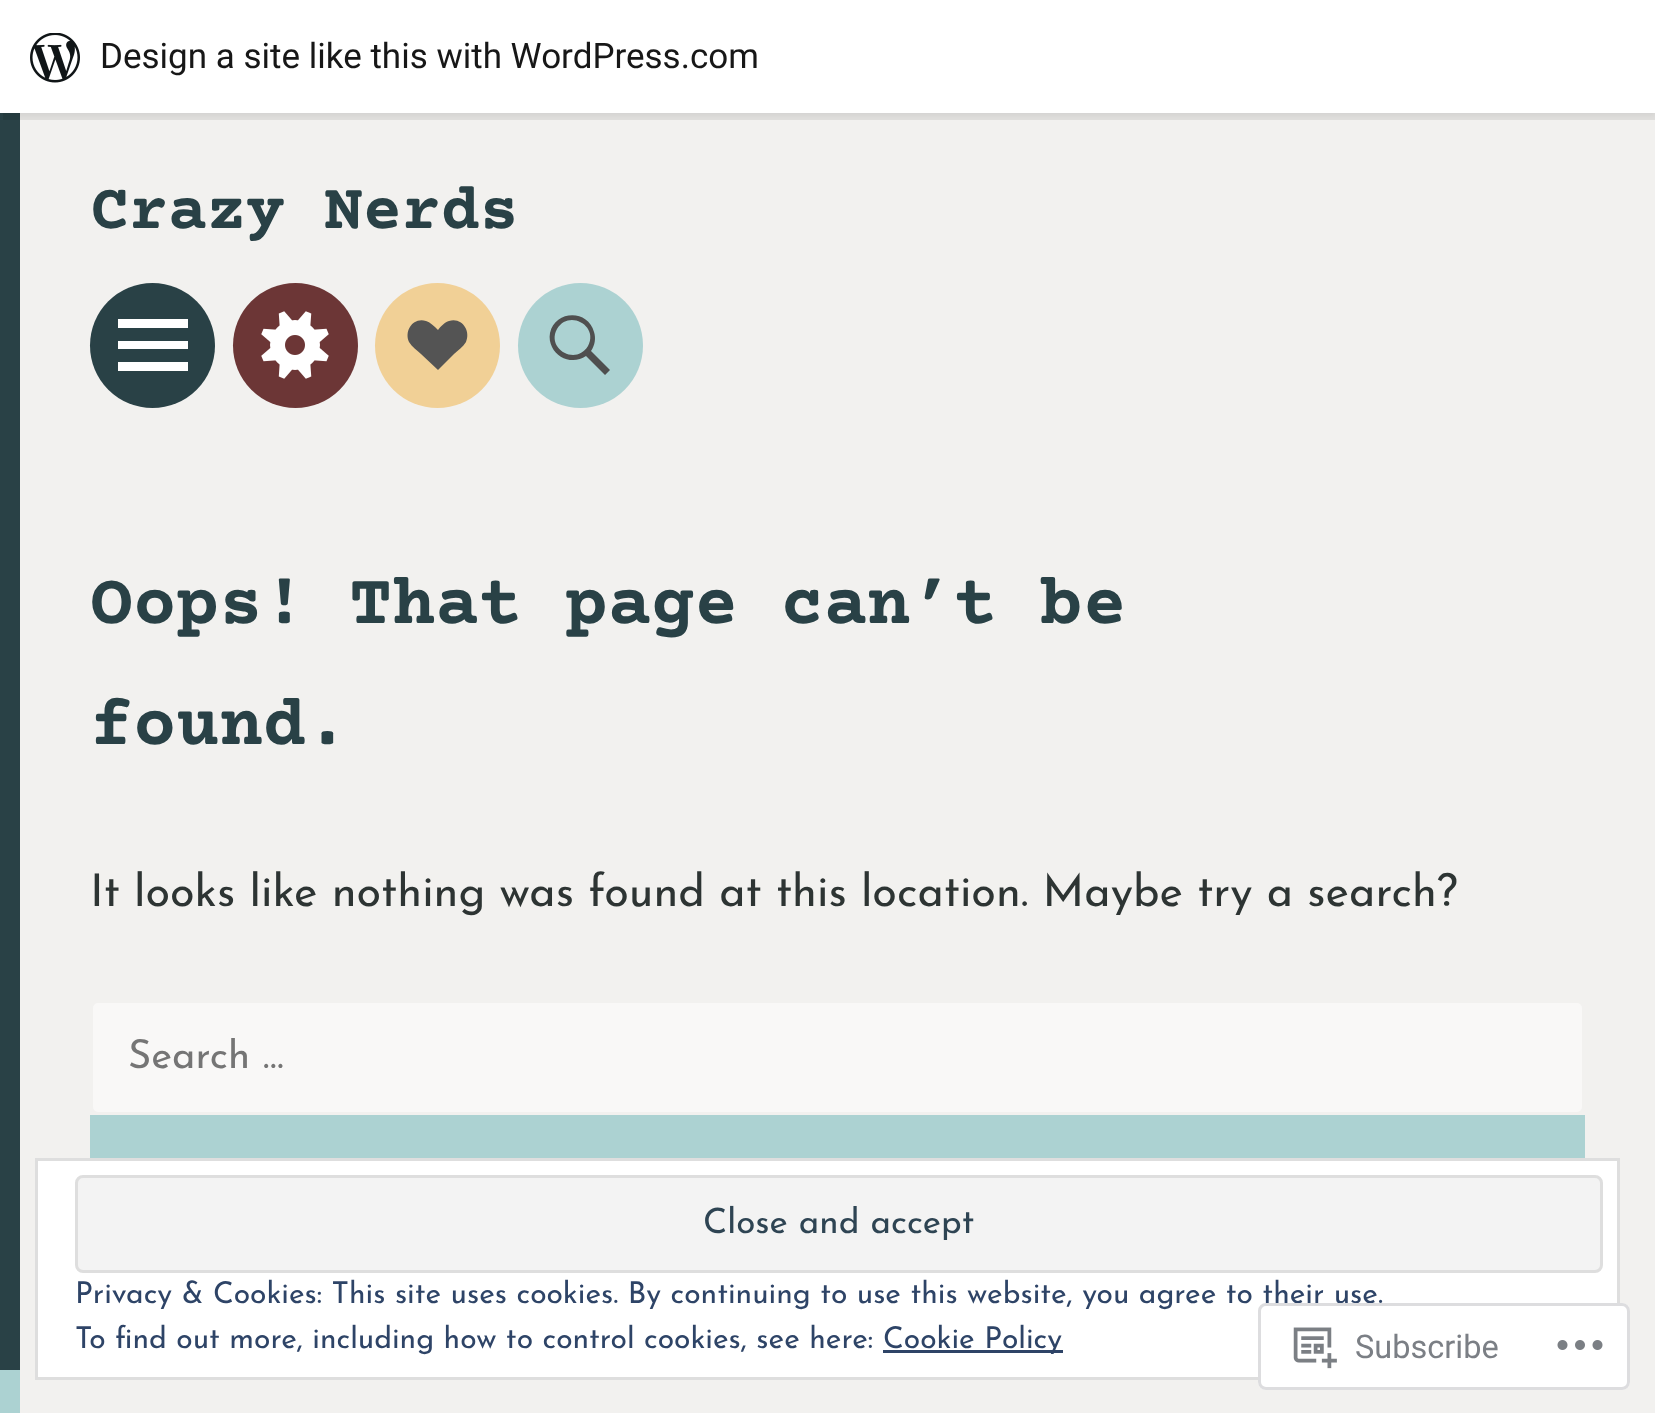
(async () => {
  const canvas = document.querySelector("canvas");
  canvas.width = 1655;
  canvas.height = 1413;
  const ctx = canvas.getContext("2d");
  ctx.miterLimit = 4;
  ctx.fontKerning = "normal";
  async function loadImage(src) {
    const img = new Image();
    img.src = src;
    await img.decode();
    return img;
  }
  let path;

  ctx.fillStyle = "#f2f1ef";
  ctx.fillRect(0, 0, 1655, 1413);
  ctx.fillStyle = "#294146";
  ctx.fillRect(0, 113, 20, 1257);
  ctx.fillStyle = "rgba(0, 0, 0, 0.05)";
  ctx.filter = "blur(2.5px)";
  ctx.beginPath();
  ctx.rect(0, 3, 1655, 112);
  ctx.fill();
  ctx.filter = "none";
  ctx.fillStyle = "rgba(0, 0, 0, 0.08)";
  path = new Path2D("M3 112V120H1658V8H1655V112Z");
  ctx.fill(path);
  ctx.fillStyle = "#ffffff";
  ctx.fillRect(0, 0, 1655, 113);
  ctx.drawImage(await loadImage("img/1.png"), 30, 33, 50, 50);
  ctx.fillStyle = "#294146";
  ctx.beginPath();
  ctx.arc(152.5, 345.5, 62.5, 0, Math.PI * 2);
  ctx.fill();
  ctx.fillStyle = "#ffffff";
  path = new Path2D("M118 371V362H188V371ZM118 319H188V328H118ZM118 349V341H188V349Z");
  ctx.fill(path);
  ctx.fillStyle = "#6c3636";
  ctx.beginPath();
  ctx.arc(295.5, 345.5, 62.5, 0, Math.PI * 2);
  ctx.fill();
  ctx.drawImage(await loadImage("img/2.png"), 261, 311, 68, 68);
  ctx.fillStyle = "#f1d096";
  ctx.beginPath();
  ctx.arc(437.5, 345.5, 62.5, 0, Math.PI * 2);
  ctx.fill();
  ctx.fillStyle = "#545454";
  path = new Path2D("M438 370L421 354C417 350 412 347 409 342C404 331 413 317 426 321C430 322 434 326 438 330C441 326 445 322 449 321C462 317 471 331 466 342C463 347 458 350 454 354Z");
  ctx.fill(path);
  ctx.fillStyle = "#acd2d2";
  ctx.beginPath();
  ctx.arc(580.5, 345.5, 62.5, 0, Math.PI * 2);
  ctx.fill();
  ctx.fillStyle = "#4f4f4f";
  path = new Path2D("M610 370L605 375L586 356C575 364 558 360 552 347C550 343 549 338 550 333C555 310 588 309 594 332C596 338 595 345 591 351ZM557 329C546 349 576 366 588 346C599 326 569 309 557 329Z");
  ctx.fill(path);
  ctx.fillStyle = "#f9f8f7";
  ctx.beginPath();
  ctx.roundRect(91.5, 1001.5, 1492, 112, 6.5);
  ctx.fill();
  ctx.strokeStyle = "#f2f1ef";
  ctx.lineWidth = 3;
  ctx.stroke();
  ctx.fillStyle = "#acd2d2";
  ctx.fillRect(90, 1115, 1495, 43);
  ctx.fillRect(0, 1370, 20, 43);
  ctx.fillStyle = "#ffffff";
  ctx.beginPath();
  ctx.rect(36.5, 1159.5, 1582, 219);
  ctx.fill();
  ctx.strokeStyle = "#dedede";
  ctx.stroke();
  ctx.fillStyle = "#f3f3f3";
  ctx.beginPath();
  ctx.roundRect(76.5, 1176.5, 1525, 95, 6.5);
  ctx.fill();
  ctx.stroke();
  ctx.fillStyle = "#2e4467";
  ctx.fillRect(883, 1350, 180, 3);
  ctx.font = "35px Roboto";
  ctx.fillStyle = "#171717";
  ctx.fillText("Design a site like this with WordPress.com", 100, 68);
  ctx.font = "bold 65px Courier Prime";
  ctx.fillStyle = "#294146";
  ctx.fillText("Crazy Nerds", 90, 228);
  ctx.font = "bold 72px Courier Prime";
  ctx.fillText("Oops! That page can’t be", 90, 623);
  ctx.fillText("found.", 90, 744);
  ctx.font = "45px Josefin Sans";
  ctx.fillStyle = "#2d3433";
  ctx.fillText("It looks like nothing was found at this location. Maybe try a search?", 90, 906);
  ctx.save();
  ctx.beginPath();
  ctx.rect(128, 1038, 1382, 40);
  ctx.clip();
  ctx.font = "40px Josefin Sans";
  ctx.fillStyle = "#757575";
  ctx.fillText("Search …", 128, 1068);
  ctx.restore();
  ctx.font = "35px Josefin Sans";
  ctx.fillStyle = "#2e4453";
  ctx.fillText("Close and accept", 703, 1233);
  ctx.font = "30px Josefin Sans";
  ctx.fillStyle = "#2e4467";
  for (const [text, x, y] of [
    ["Privacy & Cookies: This site uses cookies. By continuing to use this website, you agree to their use.", 75, 1303],
    ["To find out more, including how to control cookies, see here:", 75, 1348],
    ["Cookie Policy", 883, 1348],
  ]) {
    ctx.fillText(text, x, y);
  }
  ctx.fillStyle = "rgba(255, 255, 255, 0.98)";
  ctx.beginPath();
  ctx.roundRect(1258, 1303, 372, 87, 8);
  ctx.fill();
  ctx.beginPath();
  ctx.roundRect(1259.5, 1304.5, 369, 84, 6.5);
  ctx.strokeStyle = "rgba(220, 220, 222, 0.98)";
  ctx.stroke();
  ctx.drawImage(await loadImage("img/3.png"), 1293, 1327, 44, 42);
  ctx.font = "32.5px Roboto";
  ctx.fillStyle = "#7b7f85";
  ctx.fillText("Subscribe", 1355, 1358);
  ctx.drawImage(await loadImage("img/4.png"), 1557, 1340, 46, 10);
})();
